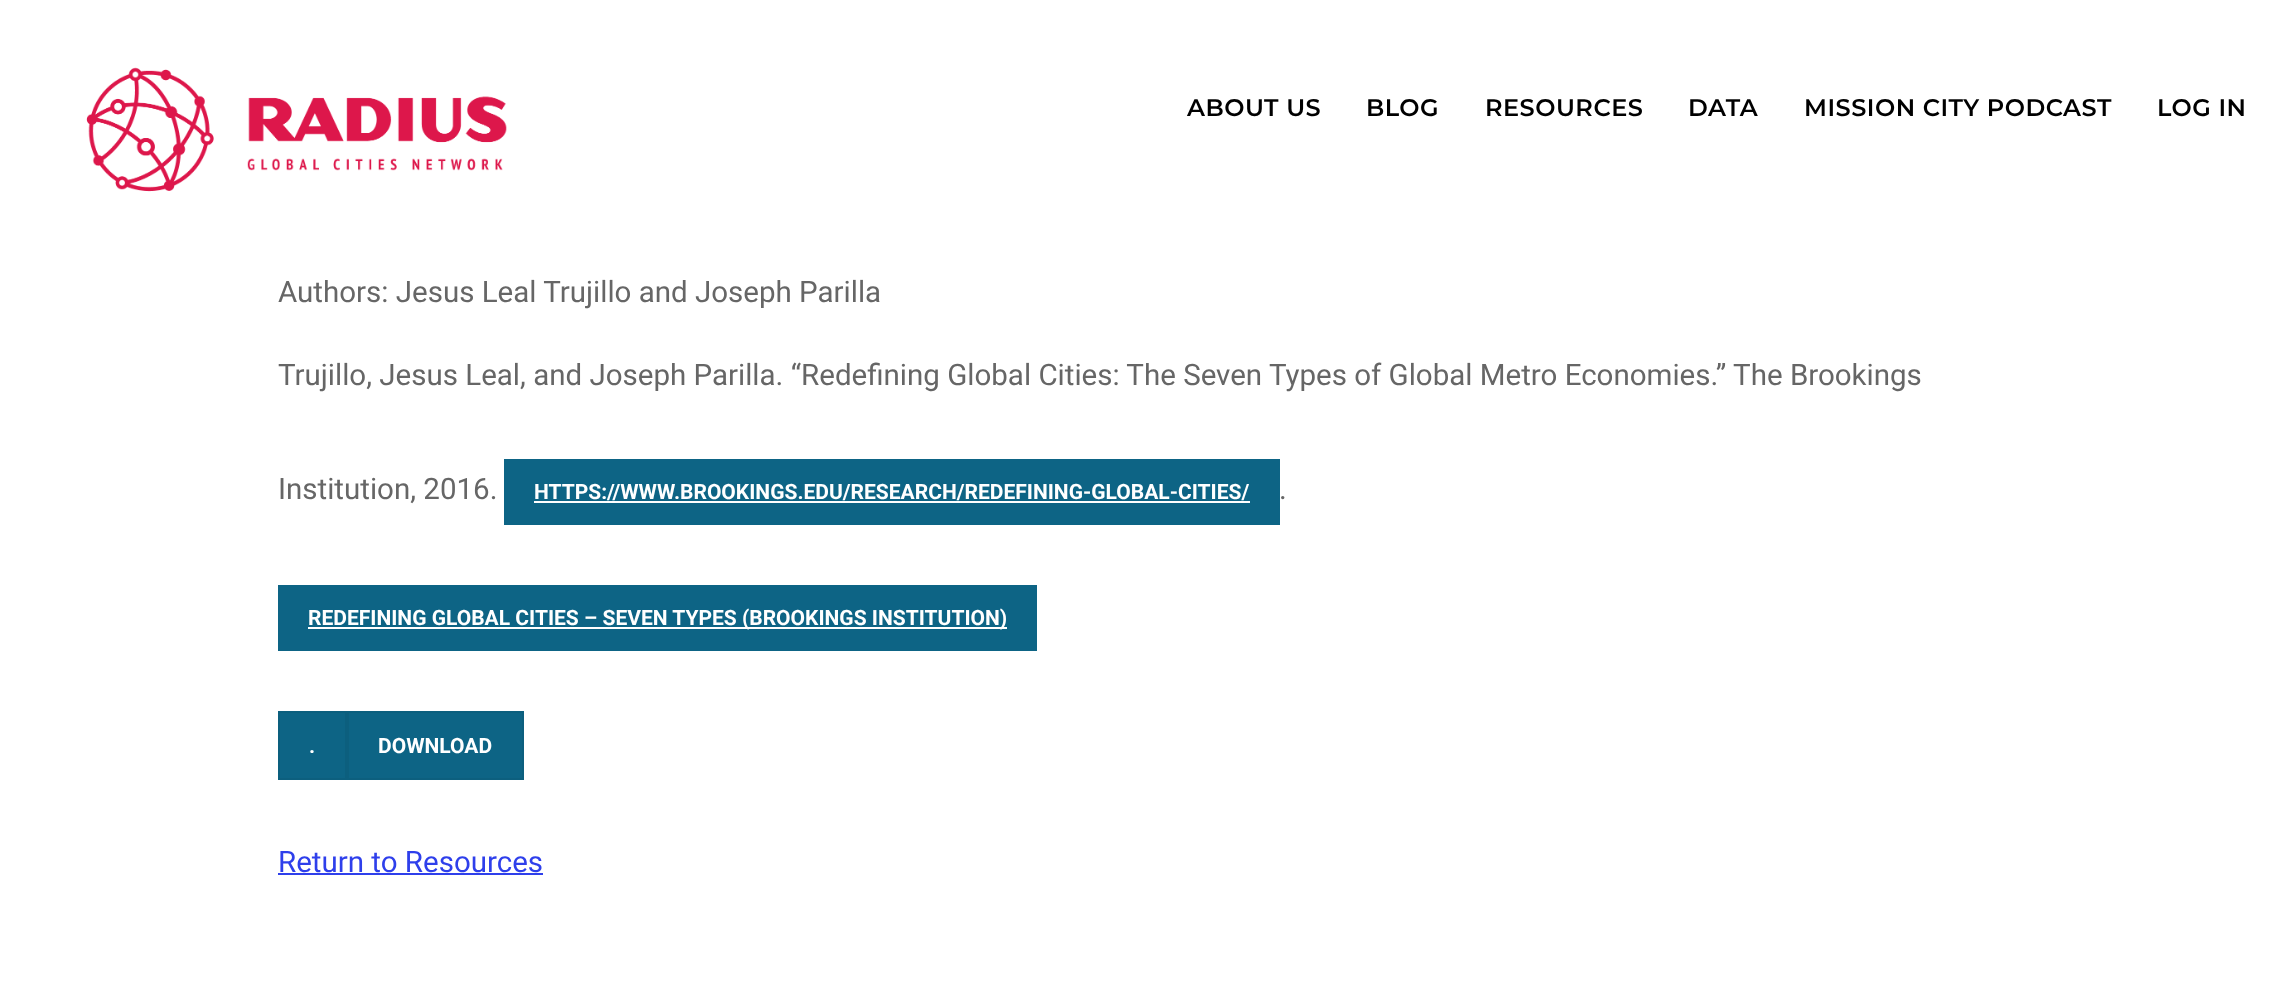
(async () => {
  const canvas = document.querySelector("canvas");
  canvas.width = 2295;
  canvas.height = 989;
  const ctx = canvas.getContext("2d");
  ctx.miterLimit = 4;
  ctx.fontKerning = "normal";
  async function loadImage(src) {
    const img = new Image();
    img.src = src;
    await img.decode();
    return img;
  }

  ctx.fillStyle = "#ffffff";
  ctx.fillRect(0, 0, 2295, 989);
  ctx.drawImage(await loadImage("img/1.png"), 86, 67, 421, 125);
  for (const [x, y, w, h, color] of [
    [504, 459, 776, 66, "#0d6485"],
    [534, 501, 716, 2, "#ffffff"],
    [278, 585, 759, 66, "#0d6485"],
    [308, 627, 699, 2, "#ffffff"],
  ]) {
    ctx.fillStyle = color;
    ctx.fillRect(x, y, w, h);
  }
  ctx.fillStyle = "#0d6485";
  ctx.beginPath();
  ctx.rect(279, 712, 67, 67);
  ctx.fill();
  ctx.strokeStyle = "#0c5f7e";
  ctx.lineWidth = 2;
  ctx.stroke();
  ctx.beginPath();
  ctx.rect(348, 712, 175, 67);
  ctx.fill();
  ctx.stroke();
  ctx.fillStyle = "#2e3feb";
  ctx.fillRect(278, 873, 265, 2);
  ctx.letterSpacing = "0.5px";
  ctx.font = "600 24px Montserrat";
  ctx.fillStyle = "#000000";
  for (const [text, x, y] of [
    ["ABOUT US", 1187, 116],
    ["BLOG", 1366, 116],
    ["RESOURCES", 1485, 116],
    ["DATA", 1688, 116],
    ["MISSION CITY PODCAST", 1804, 116],
    ["LOG IN", 2157, 116],
  ]) {
    ctx.fillText(text, x, y);
  }
  ctx.letterSpacing = "0px";
  ctx.font = "29.5px Roboto";
  ctx.fillStyle = "#666666";
  for (const [text, x, y] of [
    ["Authors: Jesus Leal Trujillo and Joseph Parilla", 278, 302],
    ["Trujillo, Jesus Leal, and Joseph Parilla. “Redefining Global Cities: The Seven Types of Global Metro Economies.” The Brookings", 278, 385],
    ["Institution, 2016.", 278, 499],
  ]) {
    ctx.fillText(text, x, y);
  }
  ctx.font = "bold 21px Roboto";
  ctx.fillStyle = "#ffffff";
  ctx.fillText("HTTPS://WWW.BROOKINGS.EDU/RESEARCH/REDEFINING-GLOBAL-CITIES/", 534, 499);
  ctx.font = "29.5px Roboto";
  ctx.fillStyle = "#666666";
  ctx.fillText(".", 1279, 499);
  ctx.font = "bold 21px Roboto";
  ctx.fillStyle = "#ffffff";
  for (const [text, x, y] of [
    ["REDEFINING GLOBAL CITIES – SEVEN TYPES (BROOKINGS INSTITUTION)", 308, 625],
    [".", 309, 753],
    ["DOWNLOAD", 378, 753],
  ]) {
    ctx.fillText(text, x, y);
  }
  ctx.font = "29.5px Roboto";
  ctx.fillStyle = "#2e3feb";
  ctx.fillText("Return to Resources", 278, 872);
})();
